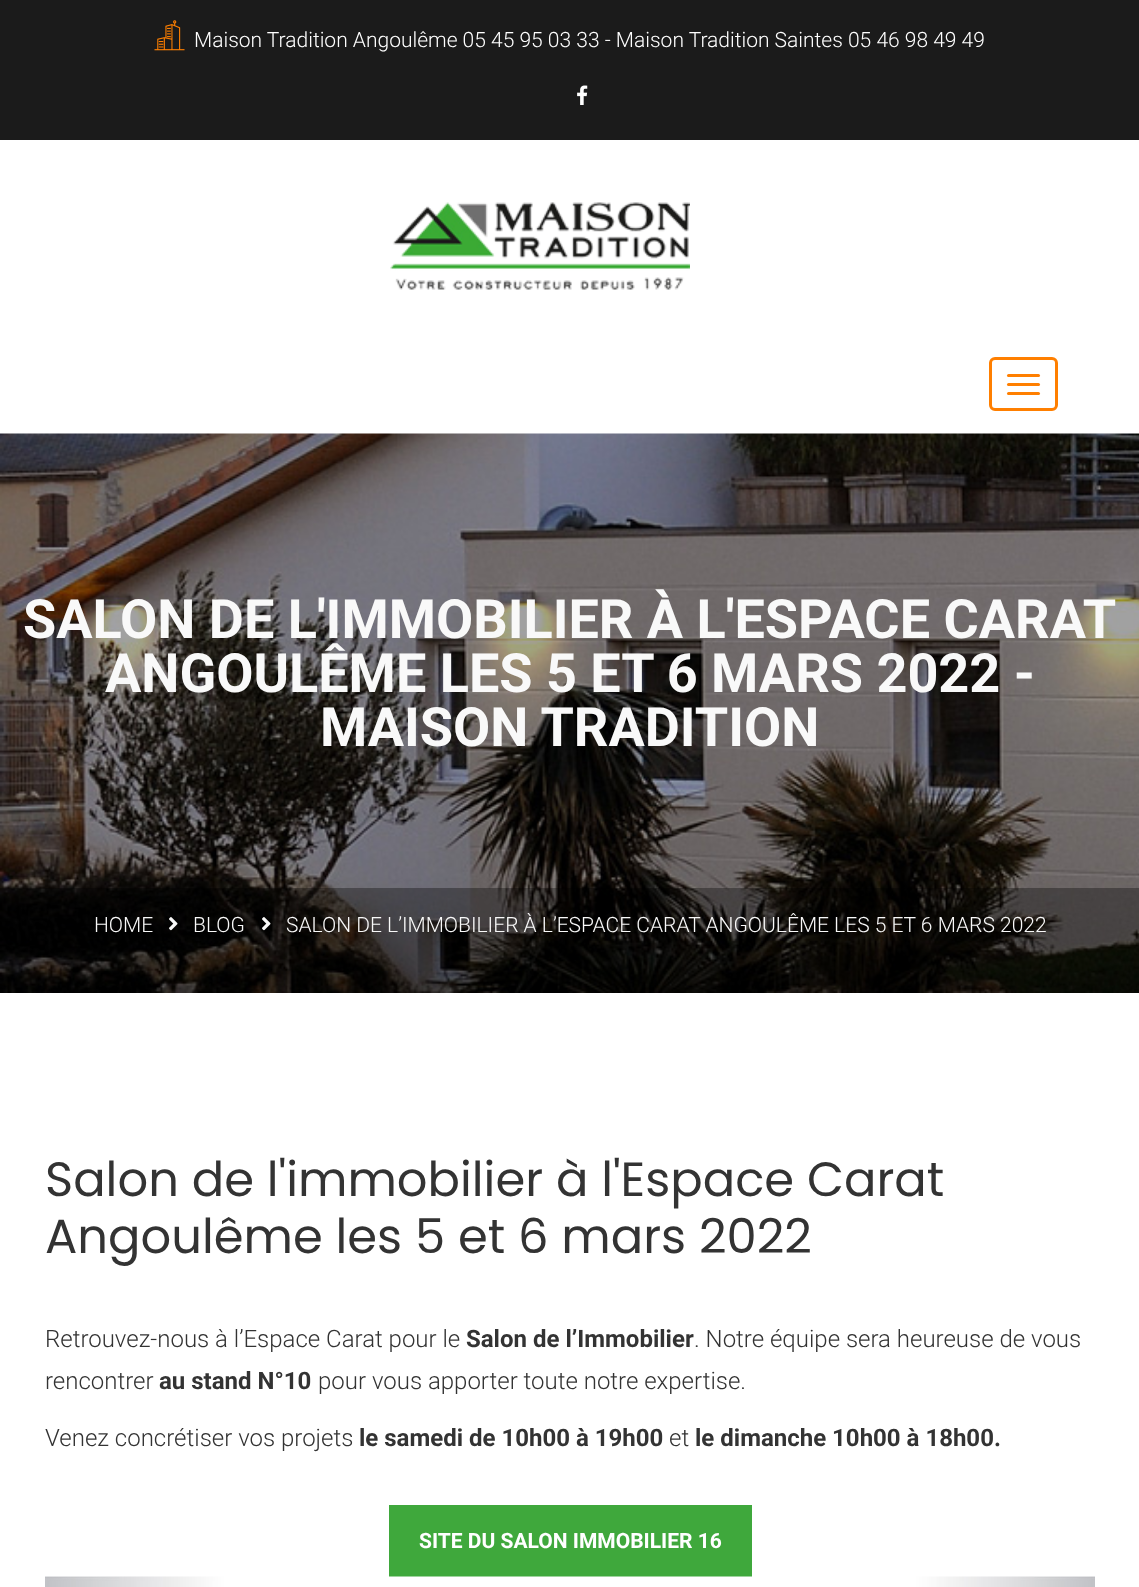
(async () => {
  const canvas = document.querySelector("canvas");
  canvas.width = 1139;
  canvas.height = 1587;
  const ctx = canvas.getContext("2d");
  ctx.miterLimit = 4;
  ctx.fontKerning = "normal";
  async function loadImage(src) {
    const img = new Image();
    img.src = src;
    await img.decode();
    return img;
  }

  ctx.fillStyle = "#ffffff";
  ctx.fillRect(0, 0, 1139, 1587);
  ctx.fillStyle = "#1b1b1b";
  ctx.fillRect(0, 0, 1139, 140);
  ctx.drawImage(await loadImage("img/1.png"), 154, 20, 31, 31);
  ctx.drawImage(await loadImage("img/2.png"), 577, 85, 11, 20);
  ctx.drawImage(await loadImage("img/3.png"), 390, 202, 300, 88);
  ctx.beginPath();
  ctx.roundRect(990.5, 358.5, 66, 51, 4.5);
  ctx.strokeStyle = "#ff7f00";
  ctx.lineWidth = 3;
  ctx.stroke();
  ctx.fillStyle = "#ff7f00";
  ctx.beginPath();
  ctx.roundRect(1007, 374, 33, 3, 1.5);
  ctx.fill();
  ctx.beginPath();
  ctx.roundRect(1007, 383, 33, 3, 1.5);
  ctx.fill();
  ctx.beginPath();
  ctx.roundRect(1007, 392, 33, 3, 1.5);
  ctx.fill();
  ctx.drawImage(await loadImage("img/4.png"), 0, 433, 1139, 560);
  ctx.fillStyle = "rgba(0, 0, 0, 0.33)";
  ctx.fillRect(0, 888, 1139, 105);
  ctx.drawImage(await loadImage("img/5.png"), 169, 917, 9, 14);
  ctx.drawImage(await loadImage("img/6.png"), 262, 917, 9, 14);
  ctx.fillStyle = "#3fa83c";
  ctx.fillRect(389, 1505, 363, 72);
  ctx.drawImage(await loadImage("img/7.png"), 45, 1576, 1050, 11);
  ctx.font = "300 21px Roboto";
  ctx.fillStyle = "#ffffff";
  ctx.fillText("Maison Tradition Angoulême 05 45 95 03 33 - Maison Tradition Saintes 05 46 98 49 49", 194, 47);
  ctx.font = "bold 54px Roboto";
  ctx.fillStyle = "#f9f9f9";
  for (const [text, x, y] of [
    ["SALON DE L'IMMOBILIER À L'ESPACE CARAT", 23, 638],
    ["ANGOULÊME LES 5 ET 6 MARS 2022 -", 105, 692],
    ["MAISON TRADITION", 320, 746],
  ]) {
    ctx.fillText(text, x, y);
  }
  ctx.font = "300 21px Roboto";
  for (const [text, x, y] of [
    ["HOME", 94, 932],
    ["BLOG", 193, 932],
    ["SALON DE L’IMMOBILIER À L’ESPACE CARAT ANGOULÊME LES 5 ET 6 MARS 2022", 286, 932],
  ]) {
    ctx.fillText(text, x, y);
  }
  ctx.font = "48px Poppins";
  ctx.fillStyle = "#333333";
  ctx.fillText("Salon de l'immobilier à l'Espace Carat", 45, 1196);
  ctx.fillText("Angoulême les 5 et 6 mars 2022", 45, 1253);
  ctx.font = "300 24px Roboto";
  ctx.fillText("Retrouvez-nous à l’Espace Carat pour le", 45, 1347);
  ctx.font = "bold 24px Roboto";
  ctx.fillText("Salon de l’Immobilier", 466, 1347);
  ctx.font = "300 24px Roboto";
  ctx.fillText(". Notre équipe sera heureuse de vous", 694, 1347);
  ctx.fillText("rencontrer", 45, 1389);
  ctx.font = "bold 24px Roboto";
  ctx.fillText("au stand N°10", 159, 1389);
  ctx.font = "300 24px Roboto";
  ctx.fillText("pour vous apporter toute notre expertise.", 318, 1389);
  ctx.fillText("Venez concrétiser vos projets", 45, 1446);
  ctx.font = "bold 24px Roboto";
  ctx.fillText("le samedi de 10h00 à 19h00", 359, 1446);
  ctx.font = "300 24px Roboto";
  ctx.fillText("et", 669, 1446);
  ctx.font = "bold 24px Roboto";
  ctx.fillText("le dimanche 10h00 à 18h00.", 695, 1446);
  ctx.font = "bold 21px Roboto";
  ctx.fillStyle = "#ffffff";
  ctx.fillText("SITE DU SALON IMMOBILIER 16", 419, 1548);
})();
